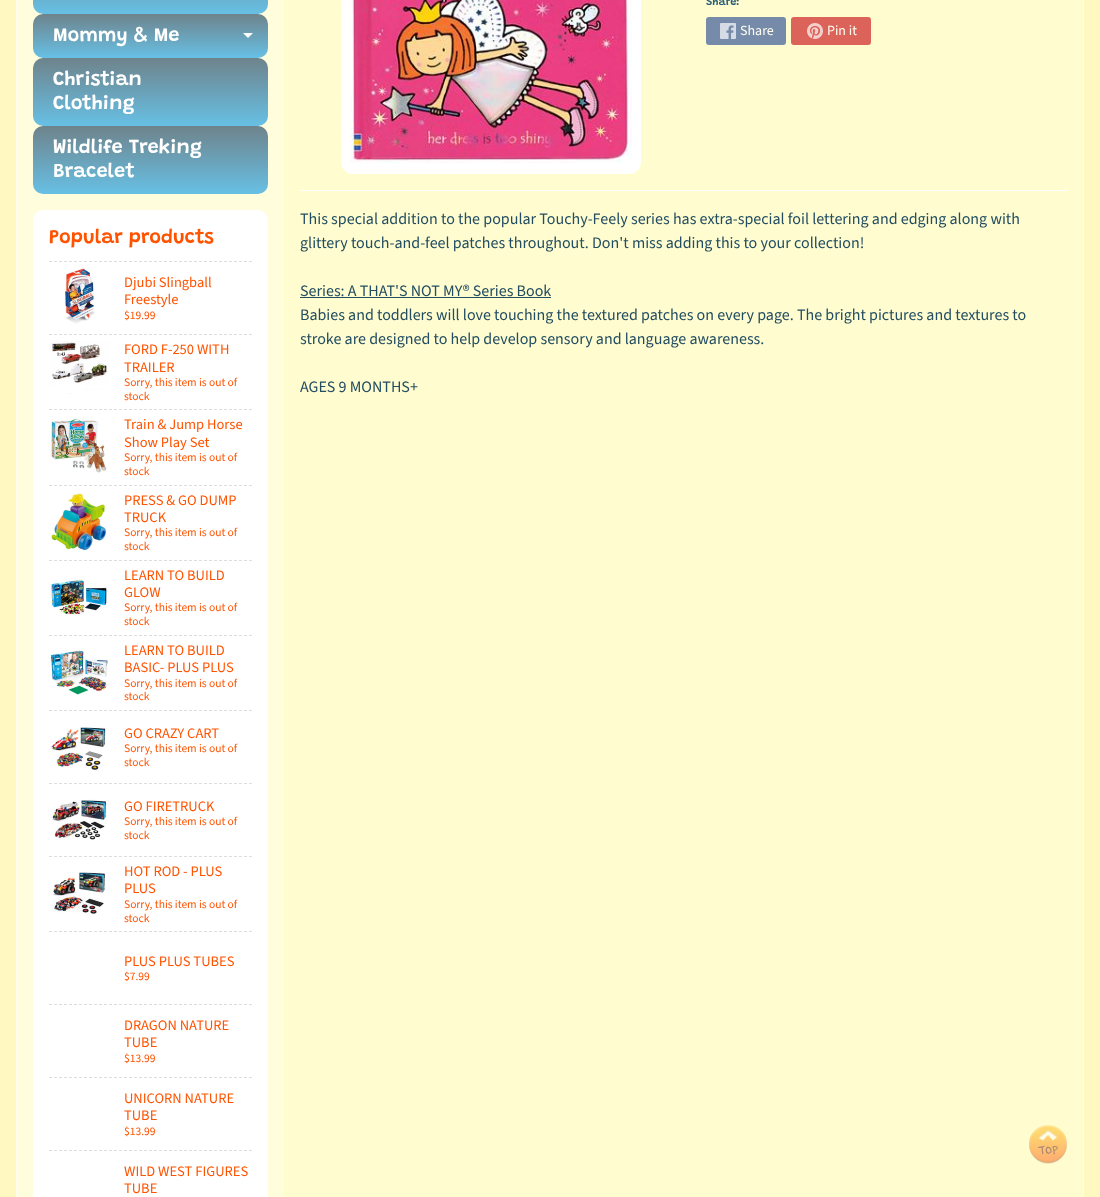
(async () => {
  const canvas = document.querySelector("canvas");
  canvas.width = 1100;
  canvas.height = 1197;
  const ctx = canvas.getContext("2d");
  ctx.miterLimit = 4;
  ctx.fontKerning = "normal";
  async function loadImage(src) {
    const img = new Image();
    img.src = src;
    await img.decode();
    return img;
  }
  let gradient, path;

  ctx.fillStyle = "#fff9c1";
  ctx.fillRect(0, 0, 1100, 1197);
  ctx.fillStyle = "#fffdd0";
  ctx.fillRect(284, 0, 799, 1197);
  ctx.strokeStyle = "#fffef1";
  ctx.strokeRect(16.5, -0.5, 1067, 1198);
  ctx.fillStyle = "#fffddc";
  ctx.fillRect(17, 0, 267, 1197);
  gradient = ctx.createLinearGradient(151, -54, 151, 14);
  gradient.addColorStop(0, "#6e838b");
  gradient.addColorStop(1, "#67c0e5");
  ctx.fillStyle = gradient;
  ctx.beginPath();
  ctx.roundRect(33, -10, 235, 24, 10);
  ctx.fill();
  gradient = ctx.createLinearGradient(151, 14, 151, 58);
  gradient.addColorStop(0, "#6e838b");
  gradient.addColorStop(1, "#67c0e5");
  ctx.fillStyle = gradient;
  ctx.beginPath();
  ctx.roundRect(33, 14, 235, 44, 10);
  ctx.fill();
  ctx.fillStyle = "#ffffff";
  path = new Path2D("M243 33H253L248 38Z");
  ctx.fill(path);
  gradient = ctx.createLinearGradient(151, 58, 151, 126);
  gradient.addColorStop(0, "#6e838b");
  gradient.addColorStop(1, "#67c0e5");
  ctx.fillStyle = gradient;
  ctx.beginPath();
  ctx.roundRect(33, 58, 235, 68, 10);
  ctx.fill();
  gradient = ctx.createLinearGradient(151, 126, 151, 194);
  gradient.addColorStop(0, "#6e838b");
  gradient.addColorStop(1, "#67c0e5");
  ctx.fillStyle = gradient;
  ctx.beginPath();
  ctx.roundRect(33, 126, 235, 68, 10);
  ctx.fill();
  ctx.fillStyle = "#ffffff";
  ctx.beginPath();
  ctx.roundRect(33, 210, 235, 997, 10);
  ctx.fill();
  path = new Path2D("M49 261.5H252");
  ctx.strokeStyle = "#dddddd";
  ctx.setLineDash([3, 2]);
  ctx.stroke(path);
  ctx.drawImage(await loadImage("img/1.png"), 65, 268, 30, 56);
  path = new Path2D("M49 334.5H252");
  ctx.stroke(path);
  ctx.drawImage(await loadImage("img/2.png"), 50, 341, 59, 53);
  path = new Path2D("M49 409.5H252");
  ctx.stroke(path);
  ctx.drawImage(await loadImage("img/3.png"), 49, 417, 58, 56);
  path = new Path2D("M49 485.5H252");
  ctx.stroke(path);
  ctx.drawImage(await loadImage("img/4.png"), 49, 492, 58, 60);
  path = new Path2D("M49 560.5H252");
  ctx.stroke(path);
  ctx.drawImage(await loadImage("img/5.png"), 49, 579, 60, 36);
  path = new Path2D("M49 635.5H252");
  ctx.stroke(path);
  ctx.drawImage(await loadImage("img/6.png"), 49, 650, 60, 46);
  path = new Path2D("M49 710.5H252");
  ctx.stroke(path);
  ctx.drawImage(await loadImage("img/7.png"), 49, 726, 57, 44);
  path = new Path2D("M49 783.5H252");
  ctx.stroke(path);
  ctx.drawImage(await loadImage("img/8.png"), 52, 799, 55, 41);
  path = new Path2D("M49 856.5H252");
  ctx.stroke(path);
  ctx.drawImage(await loadImage("img/9.png"), 51, 871, 55, 44);
  path = new Path2D("M49 931.5H252");
  ctx.stroke(path);
  path = new Path2D("M49 1004.5H252");
  ctx.stroke(path);
  path = new Path2D("M49 1077.5H252");
  ctx.stroke(path);
  path = new Path2D("M49 1150.5H252");
  ctx.stroke(path);
  ctx.beginPath();
  ctx.roundRect(341, -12, 300, 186, 12);
  ctx.fill();
  ctx.drawImage(await loadImage("img/10.png"), 350, 0, 282, 163);
  ctx.fillStyle = "#768aa9";
  ctx.beginPath();
  ctx.roundRect(706, 17, 80, 28, 3);
  ctx.fill();
  ctx.drawImage(await loadImage("img/11.png"), 720, 23, 16, 16);
  ctx.fillStyle = "#db635a";
  ctx.beginPath();
  ctx.roundRect(791, 17, 80, 28, 3);
  ctx.fill();
  ctx.drawImage(await loadImage("img/12.png"), 807, 23, 16, 16);
  ctx.fillStyle = "#ffffff";
  ctx.fillRect(300, 190, 767, 1);
  ctx.fillStyle = "#234d61";
  ctx.fillRect(300, 297, 251, 1);
  ctx.drawImage(await loadImage("img/13.png"), 1029, 1125, 38, 39);
  ctx.font = "600 20px Grandstander";
  ctx.fillStyle = "#ffffff";
  for (const [text, x, y] of [
    ["Mommy & Me", 53, 41],
    ["Christian", 53, 85],
    ["Clothing", 53, 109],
    ["Wildlife Treking", 53, 153],
    ["Bracelet", 53, 177],
  ]) {
    ctx.fillText(text, x, y);
  }
  ctx.fillStyle = "#ff5300";
  ctx.fillText("Popular products", 49, 243);
  ctx.font = "14.5px Source Sans Pro";
  ctx.fillText("Djubi Slingball", 124, 287);
  ctx.fillText("Freestyle", 124, 304);
  ctx.font = "11.5px Source Sans Pro";
  ctx.fillText("$19.99", 124, 319);
  ctx.font = "14.5px Source Sans Pro";
  ctx.fillText("FORD F-250 WITH", 124, 354);
  ctx.fillText("TRAILER", 124, 372);
  ctx.font = "11.5px Source Sans Pro";
  ctx.fillText("Sorry, this item is out of", 124, 386);
  ctx.fillText("stock", 124, 400);
  ctx.font = "14.5px Source Sans Pro";
  ctx.fillText("Train & Jump Horse", 124, 429);
  ctx.fillText("Show Play Set", 124, 447);
  ctx.font = "11.5px Source Sans Pro";
  ctx.fillText("Sorry, this item is out of", 124, 461);
  ctx.fillText("stock", 124, 475);
  ctx.font = "14.5px Source Sans Pro";
  ctx.fillText("PRESS & GO DUMP", 124, 505);
  ctx.fillText("TRUCK", 124, 522);
  ctx.font = "11.5px Source Sans Pro";
  ctx.fillText("Sorry, this item is out of", 124, 536);
  ctx.fillText("stock", 124, 550);
  ctx.font = "14.5px Source Sans Pro";
  ctx.fillText("LEARN TO BUILD", 124, 580);
  ctx.fillText("GLOW", 124, 597);
  ctx.font = "11.5px Source Sans Pro";
  ctx.fillText("Sorry, this item is out of", 124, 611);
  ctx.fillText("stock", 124, 625);
  ctx.font = "14.5px Source Sans Pro";
  ctx.fillText("LEARN TO BUILD", 124, 655);
  ctx.fillText("BASIC- PLUS PLUS", 124, 672);
  ctx.font = "11.5px Source Sans Pro";
  ctx.fillText("Sorry, this item is out of", 124, 687);
  ctx.fillText("stock", 124, 700);
  ctx.font = "14.5px Source Sans Pro";
  ctx.fillText("GO CRAZY CART", 124, 738);
  ctx.font = "11.5px Source Sans Pro";
  ctx.fillText("Sorry, this item is out of", 124, 752);
  ctx.fillText("stock", 124, 766);
  ctx.font = "14.5px Source Sans Pro";
  ctx.fillText("GO FIRETRUCK", 124, 811);
  ctx.font = "11.5px Source Sans Pro";
  ctx.fillText("Sorry, this item is out of", 124, 825);
  ctx.fillText("stock", 124, 839);
  ctx.font = "14.5px Source Sans Pro";
  ctx.fillText("HOT ROD - PLUS", 124, 876);
  ctx.fillText("PLUS", 124, 893);
  ctx.font = "11.5px Source Sans Pro";
  ctx.fillText("Sorry, this item is out of", 124, 908);
  ctx.fillText("stock", 124, 922);
  ctx.font = "14.5px Source Sans Pro";
  ctx.fillText("PLUS PLUS TUBES", 124, 966);
  ctx.font = "11.5px Source Sans Pro";
  ctx.fillText("$7.99", 124, 980);
  ctx.font = "14.5px Source Sans Pro";
  ctx.fillText("DRAGON NATURE", 124, 1030);
  ctx.fillText("TUBE", 124, 1047);
  ctx.font = "11.5px Source Sans Pro";
  ctx.fillText("$13.99", 124, 1062);
  ctx.font = "14.5px Source Sans Pro";
  ctx.fillText("UNICORN NATURE", 124, 1103);
  ctx.fillText("TUBE", 124, 1120);
  ctx.font = "11.5px Source Sans Pro";
  ctx.fillText("$13.99", 124, 1135);
  ctx.font = "14.5px Source Sans Pro";
  ctx.fillText("WILD WEST FIGURES", 124, 1176);
  ctx.fillText("TUBE", 124, 1193);
  ctx.font = "600 11px Grandstander";
  ctx.fillStyle = "#2b5f77";
  ctx.fillText("Share:", 706, 5);
  ctx.font = "14px Source Sans Pro";
  ctx.fillStyle = "#fffef1";
  ctx.fillText("Share", 740, 35);
  ctx.fillText("Pin it", 827, 35);
  ctx.font = "16px Source Sans Pro";
  ctx.fillStyle = "#234d61";
  for (const [text, x, y] of [
    ["This special addition to the popular Touchy-Feely series has extra-special foil lettering and edging along with", 300, 224],
    ["glittery touch-and-feel patches throughout. Don't miss adding this to your collection!", 300, 248],
    ["Series: A THAT'S NOT MY® Series Book", 300, 296],
    ["Babies and toddlers will love touching the textured patches on every page. The bright pictures and textures to", 300, 320],
    ["stroke are designed to help develop sensory and language awareness.", 300, 344],
    ["AGES 9 MONTHS+", 300, 392],
  ]) {
    ctx.fillText(text, x, y);
  }
})();
